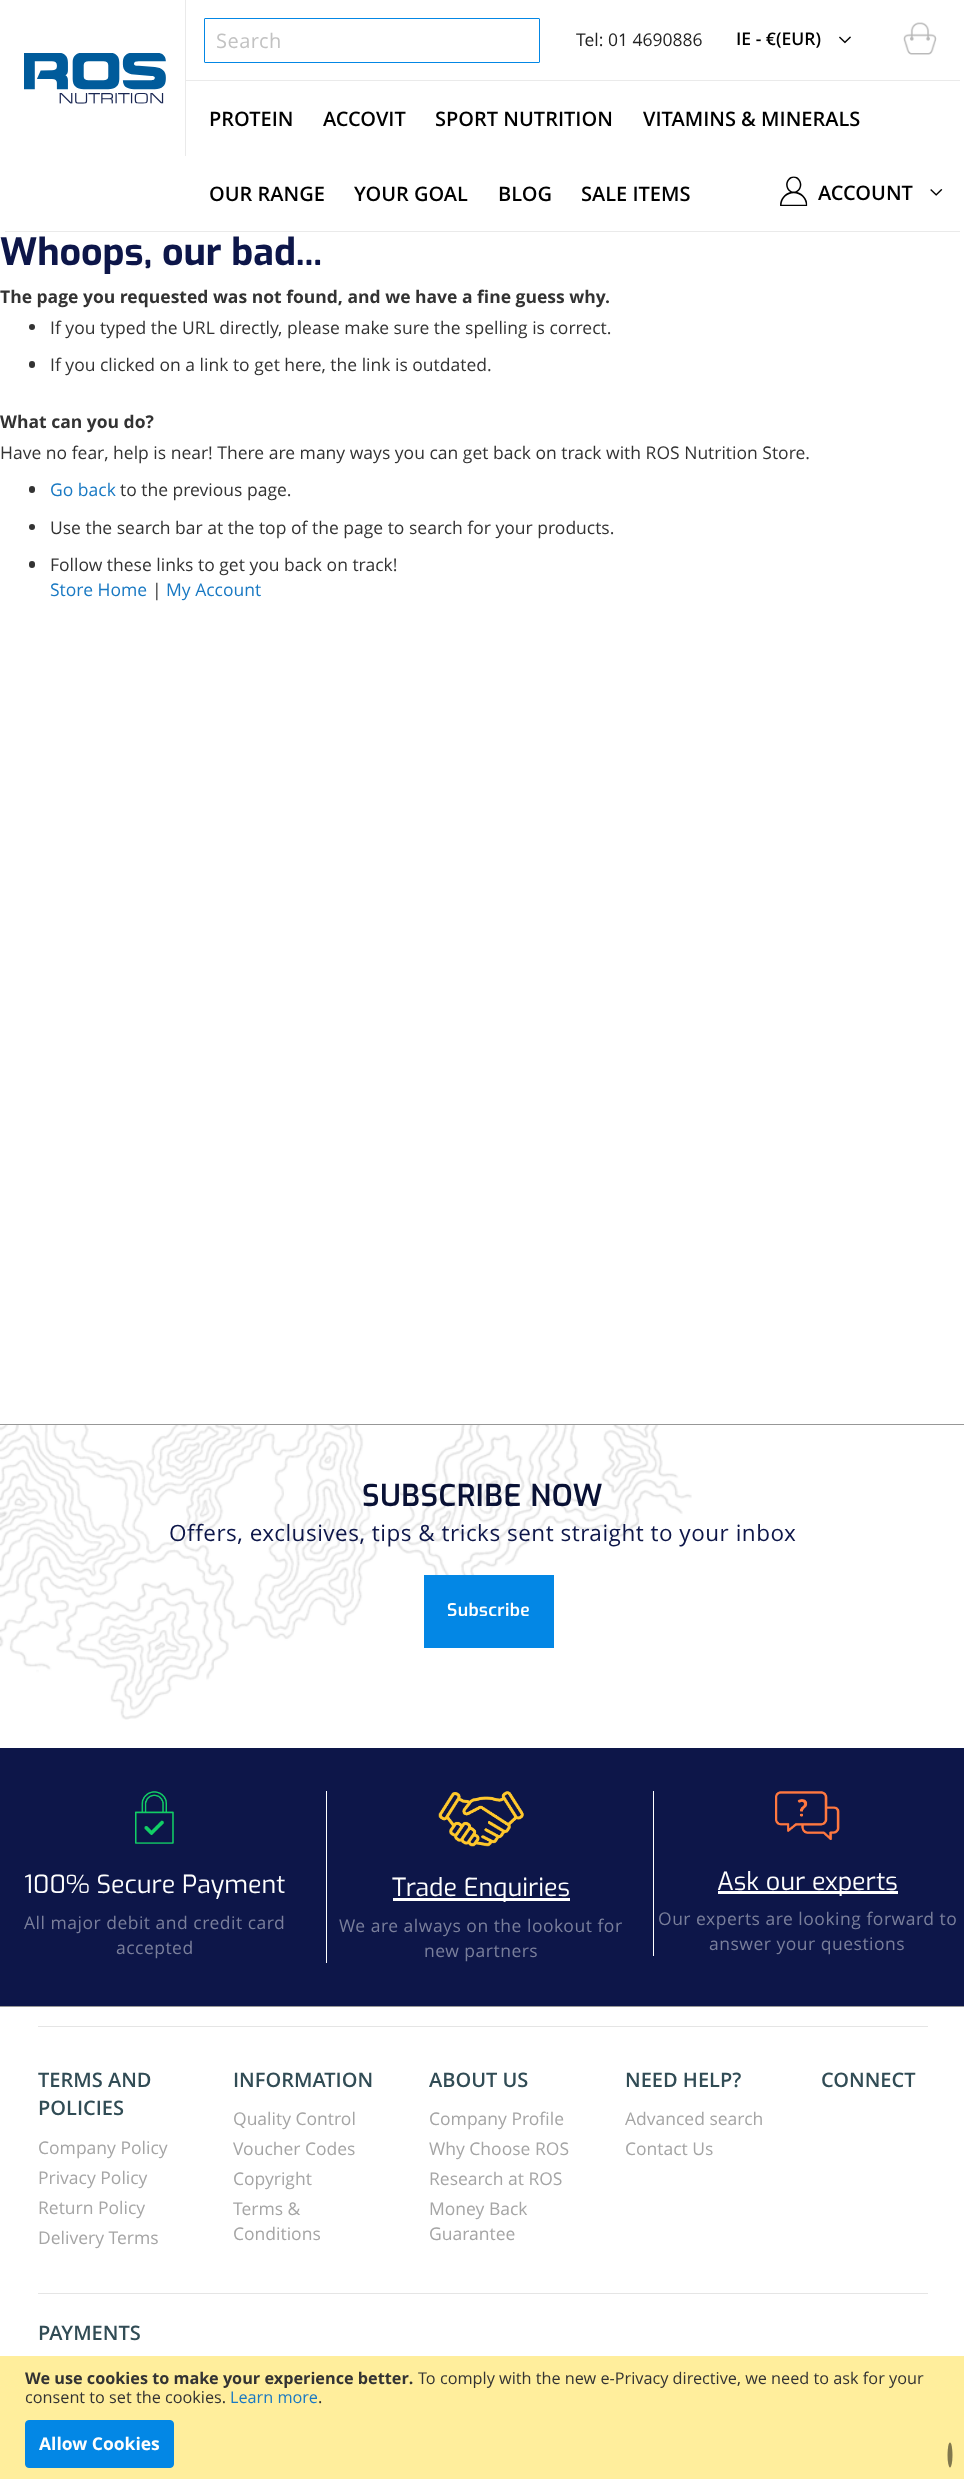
(async () => {
  const canvas = document.querySelector("canvas");
  canvas.width = 964;
  canvas.height = 2479;
  const ctx = canvas.getContext("2d");
  ctx.miterLimit = 4;
  ctx.fontKerning = "normal";
  async function loadImage(src) {
    const img = new Image();
    img.src = src;
    await img.decode();
    return img;
  }

  ctx.fillStyle = "#ffffff";
  ctx.fillRect(0, 0, 964, 2479);
  ctx.fillStyle = "#eaeaea";
  ctx.fillRect(5, 231, 955, 1);
  ctx.fillRect(185, 0, 1, 156);
  ctx.drawImage(await loadImage("img/1.png"), 24, 53, 142, 51);
  ctx.fillRect(186, 80, 774, 1);
  ctx.beginPath();
  ctx.roundRect(204.5, 18.5, 335, 44, 0.5);
  ctx.strokeStyle = "#0387e5";
  ctx.stroke();
  ctx.drawImage(await loadImage("img/2.png"), 839, 36, 12, 8);
  ctx.drawImage(await loadImage("img/3.png"), 903, 22, 34, 33);
  ctx.drawImage(await loadImage("img/4.png"), 780, 176, 28, 30);
  ctx.drawImage(await loadImage("img/5.png"), 930, 189, 13, 7);
  ctx.fillStyle = "#333333";
  ctx.beginPath();
  ctx.arc(32, 327, 3, 0, Math.PI * 2);
  ctx.fill();
  ctx.beginPath();
  ctx.roundRect(29, 361, 6, 7, 3);
  ctx.fill();
  ctx.beginPath();
  ctx.roundRect(29, 486, 6, 7, 3);
  ctx.fill();
  ctx.beginPath();
  ctx.arc(32, 527, 3, 0, Math.PI * 2);
  ctx.fill();
  ctx.beginPath();
  ctx.roundRect(29, 561, 6, 7, 3);
  ctx.fill();
  ctx.drawImage(await loadImage("img/6.png"), 0, 1425, 692, 295);
  for (const [x, y, w, h, color] of [
    [0, 1424, 964, 1, "#979797"],
    [424, 1575, 130, 73, "#0387e5"],
    [0, 1748, 964, 258, "#0d1649"],
  ]) {
    ctx.fillStyle = color;
    ctx.fillRect(x, y, w, h);
  }
  ctx.drawImage(await loadImage("img/7.png"), 135, 1791, 39, 53);
  ctx.fillStyle = "#ffffff";
  ctx.fillRect(326, 1791, 1, 172);
  ctx.drawImage(await loadImage("img/8.png"), 438, 1791, 86, 56);
  ctx.fillRect(393, 1898, 177, 3);
  ctx.fillRect(653, 1791, 1, 165);
  ctx.drawImage(await loadImage("img/9.png"), 775, 1791, 65, 49);
  for (const [x, y, w, h, color] of [
    [718, 1891, 180, 3, "#ffffff"],
    [0, 2006, 964, 1, "#979797"],
    [38, 2026, 890, 1, "#e5e5e5"],
    [38, 2293, 890, 1, "#e5e5e5"],
    [0, 2356, 964, 123, "#ffee9c"],
  ]) {
    ctx.fillStyle = color;
    ctx.fillRect(x, y, w, h);
  }
  ctx.fillStyle = "#80774e";
  ctx.beginPath();
  ctx.ellipse(950, 2455, 2.5, 12.5, 0, 0, Math.PI * 2);
  ctx.fill();
  ctx.fillStyle = "#0387e5";
  ctx.beginPath();
  ctx.roundRect(25.5, 2420.5, 148, 47, 3.5);
  ctx.fill();
  ctx.stroke();
  ctx.letterSpacing = "0.5px";
  ctx.font = "20px Open Sans";
  ctx.fillStyle = "#c2c2c2";
  ctx.fillText("Search", 216, 48);
  ctx.letterSpacing = "0px";
  ctx.font = "17.5px Open Sans";
  ctx.fillStyle = "#222222";
  ctx.fillText("Tel: 01 4690886", 576, 46);
  ctx.font = "600 17.5px Open Sans";
  ctx.fillStyle = "#000000";
  ctx.fillText("IE - €(EUR)", 736, 45);
  ctx.font = "600 20px Open Sans";
  for (const [text, x, y] of [
    ["PROTEIN", 209, 126],
    ["ACCOVIT", 323, 126],
    ["SPORT NUTRITION", 435, 126],
    ["VITAMINS & MINERALS", 643, 126],
    ["OUR RANGE", 209, 201],
    ["YOUR GOAL", 354, 201],
    ["BLOG", 498, 201],
    ["SALE ITEMS", 581, 201],
    ["ACCOUNT", 818, 200],
  ]) {
    ctx.fillText(text, x, y);
  }
  ctx.font = "bold 37.5px Exo";
  ctx.fillStyle = "#0d1649";
  ctx.fillText("Whoops, our bad...", 0, 265);
  ctx.font = "bold 17.5px Open Sans";
  ctx.fillStyle = "#333333";
  ctx.fillText("The page you requested was not found, and we have a fine guess why.", 0, 303);
  ctx.font = "17.5px Open Sans";
  ctx.fillText("If you typed the URL directly, please make sure the spelling is correct.", 50, 334);
  ctx.fillText("If you clicked on a link to get here, the link is outdated.", 50, 371);
  ctx.font = "bold 17.5px Open Sans";
  ctx.fillText("What can you do?", 0, 428);
  ctx.font = "17.5px Open Sans";
  ctx.fillText("Have no fear, help is near! There are many ways you can get back on track with ROS Nutrition Store.", 0, 459);
  ctx.fillStyle = "#1979c3";
  ctx.fillText("Go back", 50, 496);
  ctx.fillStyle = "#333333";
  for (const [text, x, y] of [
    ["to the previous page.", 120, 496],
    ["Use the search bar at the top of the page to search for your products.", 50, 534],
    ["Follow these links to get you back on track!", 50, 571],
  ]) {
    ctx.fillText(text, x, y);
  }
  ctx.fillStyle = "#1979c3";
  ctx.fillText("Store Home", 50, 596);
  ctx.fillStyle = "#333333";
  ctx.fillText("|", 152, 596);
  ctx.fillStyle = "#1979c3";
  ctx.fillText("My Account", 166, 596);
  ctx.letterSpacing = "0.6px";
  ctx.font = "600 30px Exo";
  ctx.fillStyle = "#091135";
  ctx.fillText("SUBSCRIBE NOW", 362, 1506);
  ctx.letterSpacing = "0.5px";
  ctx.font = "22.5px Open Sans";
  ctx.fillStyle = "#0d1649";
  ctx.fillText("Offers, exclusives, tips & tricks sent straight to your inbox", 169, 1541);
  ctx.letterSpacing = "0.4px";
  ctx.font = "600 17.5px Exo";
  ctx.fillStyle = "#fefefe";
  ctx.fillText("Subscribe", 447, 1616);
  ctx.letterSpacing = "0px";
  ctx.font = "25px Exo";
  ctx.fillText("100% Secure Payment", 24, 1893);
  ctx.letterSpacing = "0.5px";
  ctx.font = "17.5px Open Sans";
  ctx.fillStyle = "#7a7f9b";
  ctx.fillText("All major debit and credit card", 24, 1929);
  ctx.fillText("accepted", 116, 1954);
  ctx.letterSpacing = "0px";
  ctx.font = "25px Exo";
  ctx.fillStyle = "#fefefe";
  ctx.fillText("Trade Enquiries", 392, 1896);
  ctx.letterSpacing = "0.5px";
  ctx.font = "17.5px Open Sans";
  ctx.fillStyle = "#7a7f9b";
  ctx.fillText("We are always on the lookout for", 339, 1932);
  ctx.fillText("new partners", 424, 1957);
  ctx.letterSpacing = "0px";
  ctx.font = "25px Exo";
  ctx.fillStyle = "#fefefe";
  ctx.fillText("Ask our experts", 717, 1890);
  ctx.letterSpacing = "0.5px";
  ctx.font = "17.5px Open Sans";
  ctx.fillStyle = "#7a7f9b";
  ctx.fillText("Our experts are looking forward to", 658, 1925);
  ctx.fillText("answer your questions", 709, 1950);
  ctx.letterSpacing = "0px";
  ctx.font = "600 20px Open Sans";
  ctx.fillStyle = "#314c55";
  ctx.fillText("TERMS AND", 38, 2087);
  ctx.fillText("POLICIES", 38, 2115);
  ctx.font = "17.5px Open Sans";
  ctx.fillStyle = "#a5a5a5";
  for (const [text, x, y] of [
    ["Company Policy", 38, 2154],
    ["Privacy Policy", 38, 2184],
    ["Return Policy", 38, 2214],
    ["Delivery Terms", 38, 2244],
  ]) {
    ctx.fillText(text, x, y);
  }
  ctx.font = "600 20px Open Sans";
  ctx.fillStyle = "#314c55";
  ctx.fillText("INFORMATION", 233, 2087);
  ctx.font = "17.5px Open Sans";
  ctx.fillStyle = "#a5a5a5";
  for (const [text, x, y] of [
    ["Quality Control", 233, 2125],
    ["Voucher Codes", 233, 2155],
    ["Copyright", 233, 2185],
    ["Terms &", 233, 2215],
    ["Conditions", 233, 2240],
  ]) {
    ctx.fillText(text, x, y);
  }
  ctx.font = "600 20px Open Sans";
  ctx.fillStyle = "#314c55";
  ctx.fillText("ABOUT US", 429, 2087);
  ctx.font = "17.5px Open Sans";
  ctx.fillStyle = "#a5a5a5";
  for (const [text, x, y] of [
    ["Company Profile", 429, 2125],
    ["Why Choose ROS", 429, 2155],
    ["Research at ROS", 429, 2185],
    ["Money Back", 429, 2215],
    ["Guarantee", 429, 2240],
  ]) {
    ctx.fillText(text, x, y);
  }
  ctx.font = "600 20px Open Sans";
  ctx.fillStyle = "#314c55";
  ctx.fillText("NEED HELP?", 625, 2087);
  ctx.font = "17.5px Open Sans";
  ctx.fillStyle = "#a5a5a5";
  ctx.fillText("Advanced search", 625, 2125);
  ctx.fillText("Contact Us", 625, 2155);
  ctx.font = "600 20px Open Sans";
  ctx.fillStyle = "#314c55";
  ctx.fillText("CONNECT", 821, 2087);
  ctx.fillText("PAYMENTS", 38, 2340);
  ctx.font = "bold 16.25px Open Sans";
  ctx.fillStyle = "#333333";
  ctx.fillText("We use cookies to make your experience better.", 25, 2384);
  ctx.font = "16.25px Open Sans";
  ctx.fillText("To comply with the new e-Privacy directive, we need to ask for your", 418, 2384);
  ctx.fillText("consent to set the cookies.", 25, 2403);
  ctx.fillStyle = "#1979c3";
  ctx.fillText("Learn more", 230, 2403);
  ctx.fillStyle = "#333333";
  ctx.fillText(".", 318, 2403);
  ctx.font = "bold 17.5px Open Sans";
  ctx.fillStyle = "#fefefe";
  ctx.fillText("Allow Cookies", 39, 2450);
})();
